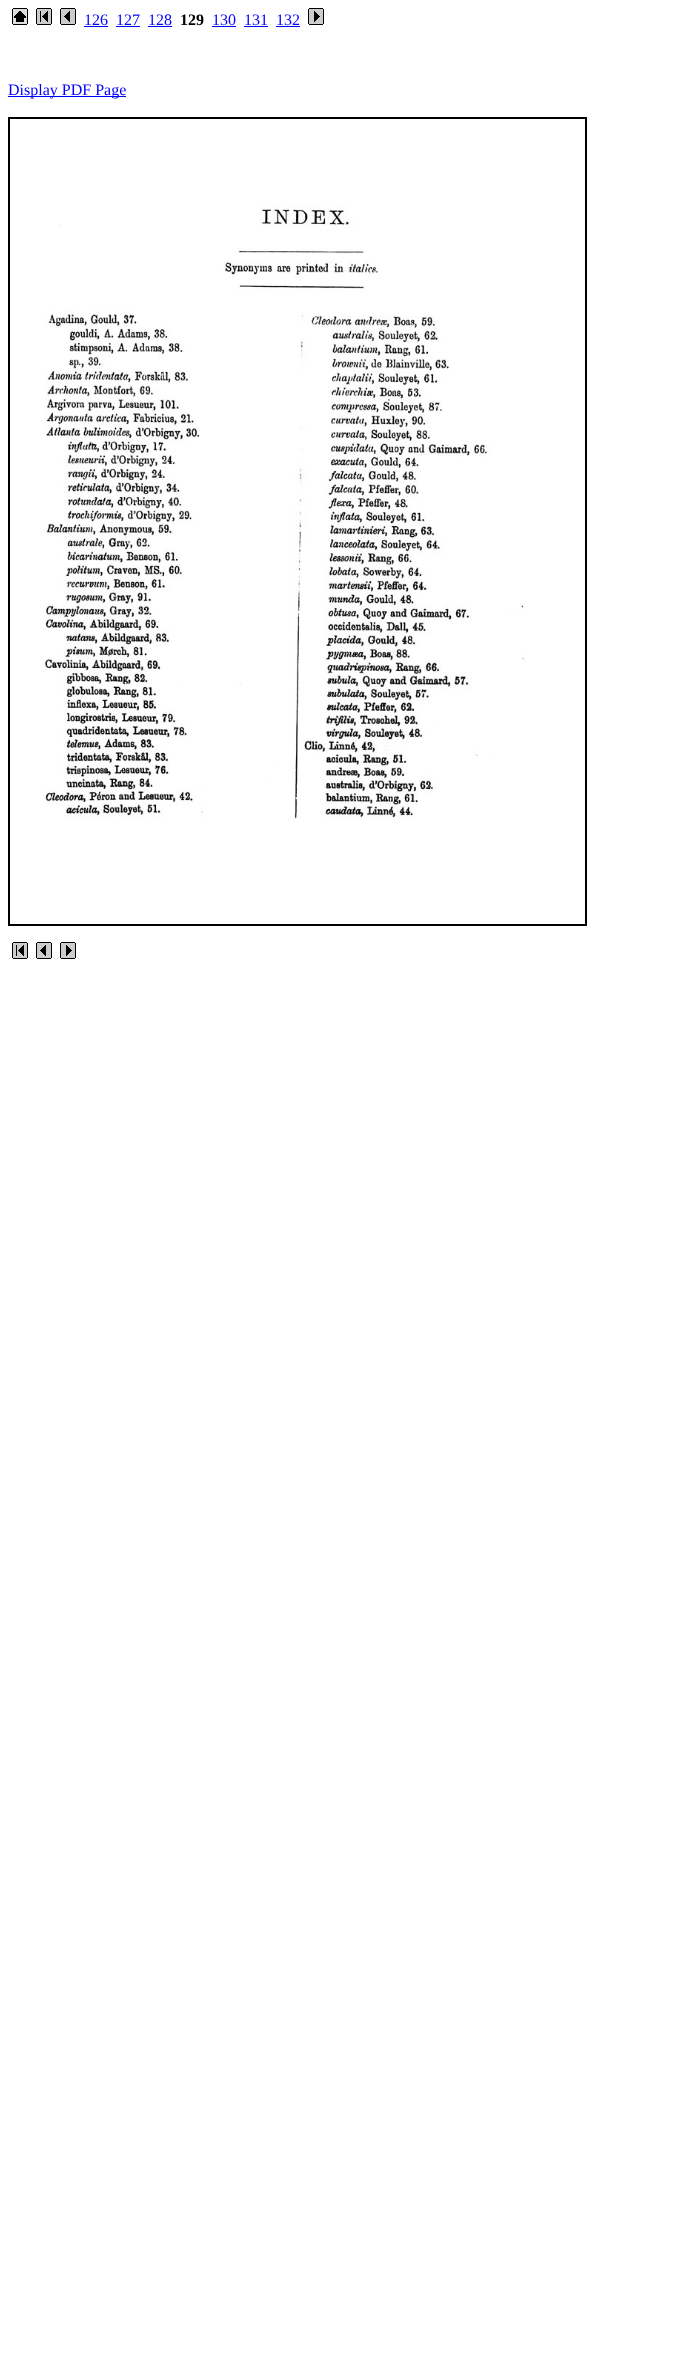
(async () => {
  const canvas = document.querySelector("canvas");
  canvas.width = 677;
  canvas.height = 2354;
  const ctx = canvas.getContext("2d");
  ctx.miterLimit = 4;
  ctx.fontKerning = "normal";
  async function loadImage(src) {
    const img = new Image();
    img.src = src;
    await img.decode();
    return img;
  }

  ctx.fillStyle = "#ffffff";
  ctx.fillRect(0, 0, 677, 2354);
  ctx.drawImage(await loadImage("img/1.png"), 12, 8, 16, 17);
  ctx.drawImage(await loadImage("img/2.png"), 36, 8, 16, 17);
  ctx.drawImage(await loadImage("img/3.png"), 60, 8, 16, 17);
  for (const [x, y, w, h, color] of [
    [84, 26, 24, 1, "#0000ff"],
    [116, 26, 24, 1, "#0000ff"],
    [148, 26, 24, 1, "#0000ff"],
    [212, 26, 24, 1, "#0000ff"],
    [244, 26, 24, 1, "#0000ff"],
    [276, 26, 24, 1, "#0000ff"],
  ]) {
    ctx.fillStyle = color;
    ctx.fillRect(x, y, w, h);
  }
  ctx.drawImage(await loadImage("img/4.png"), 308, 8, 16, 17);
  ctx.fillRect(8, 96, 118, 1);
  ctx.strokeStyle = "#000000";
  ctx.lineWidth = 2;
  ctx.strokeRect(9, 118, 577, 807);
  ctx.drawImage(await loadImage("img/5.png"), 43, 205, 482, 614);
  ctx.drawImage(await loadImage("img/2.png"), 12, 942, 16, 17);
  ctx.drawImage(await loadImage("img/3.png"), 36, 942, 16, 17);
  ctx.drawImage(await loadImage("img/4.png"), 60, 942, 16, 17);
  ctx.font = "16px Liberation Serif";
  for (const [text, x, y] of [
    ["126", 84, 25],
    ["127", 116, 25],
    ["128", 148, 25],
  ]) {
    ctx.fillText(text, x, y);
  }
  ctx.font = "bold 16px Liberation Serif";
  ctx.fillStyle = "#000000";
  ctx.fillText("129", 180, 25);
  ctx.font = "16px Liberation Serif";
  ctx.fillStyle = "#0000ff";
  for (const [text, x, y] of [
    ["130", 212, 25],
    ["131", 244, 25],
    ["132", 276, 25],
    ["Display PDF Page", 8, 95],
  ]) {
    ctx.fillText(text, x, y);
  }
})();
